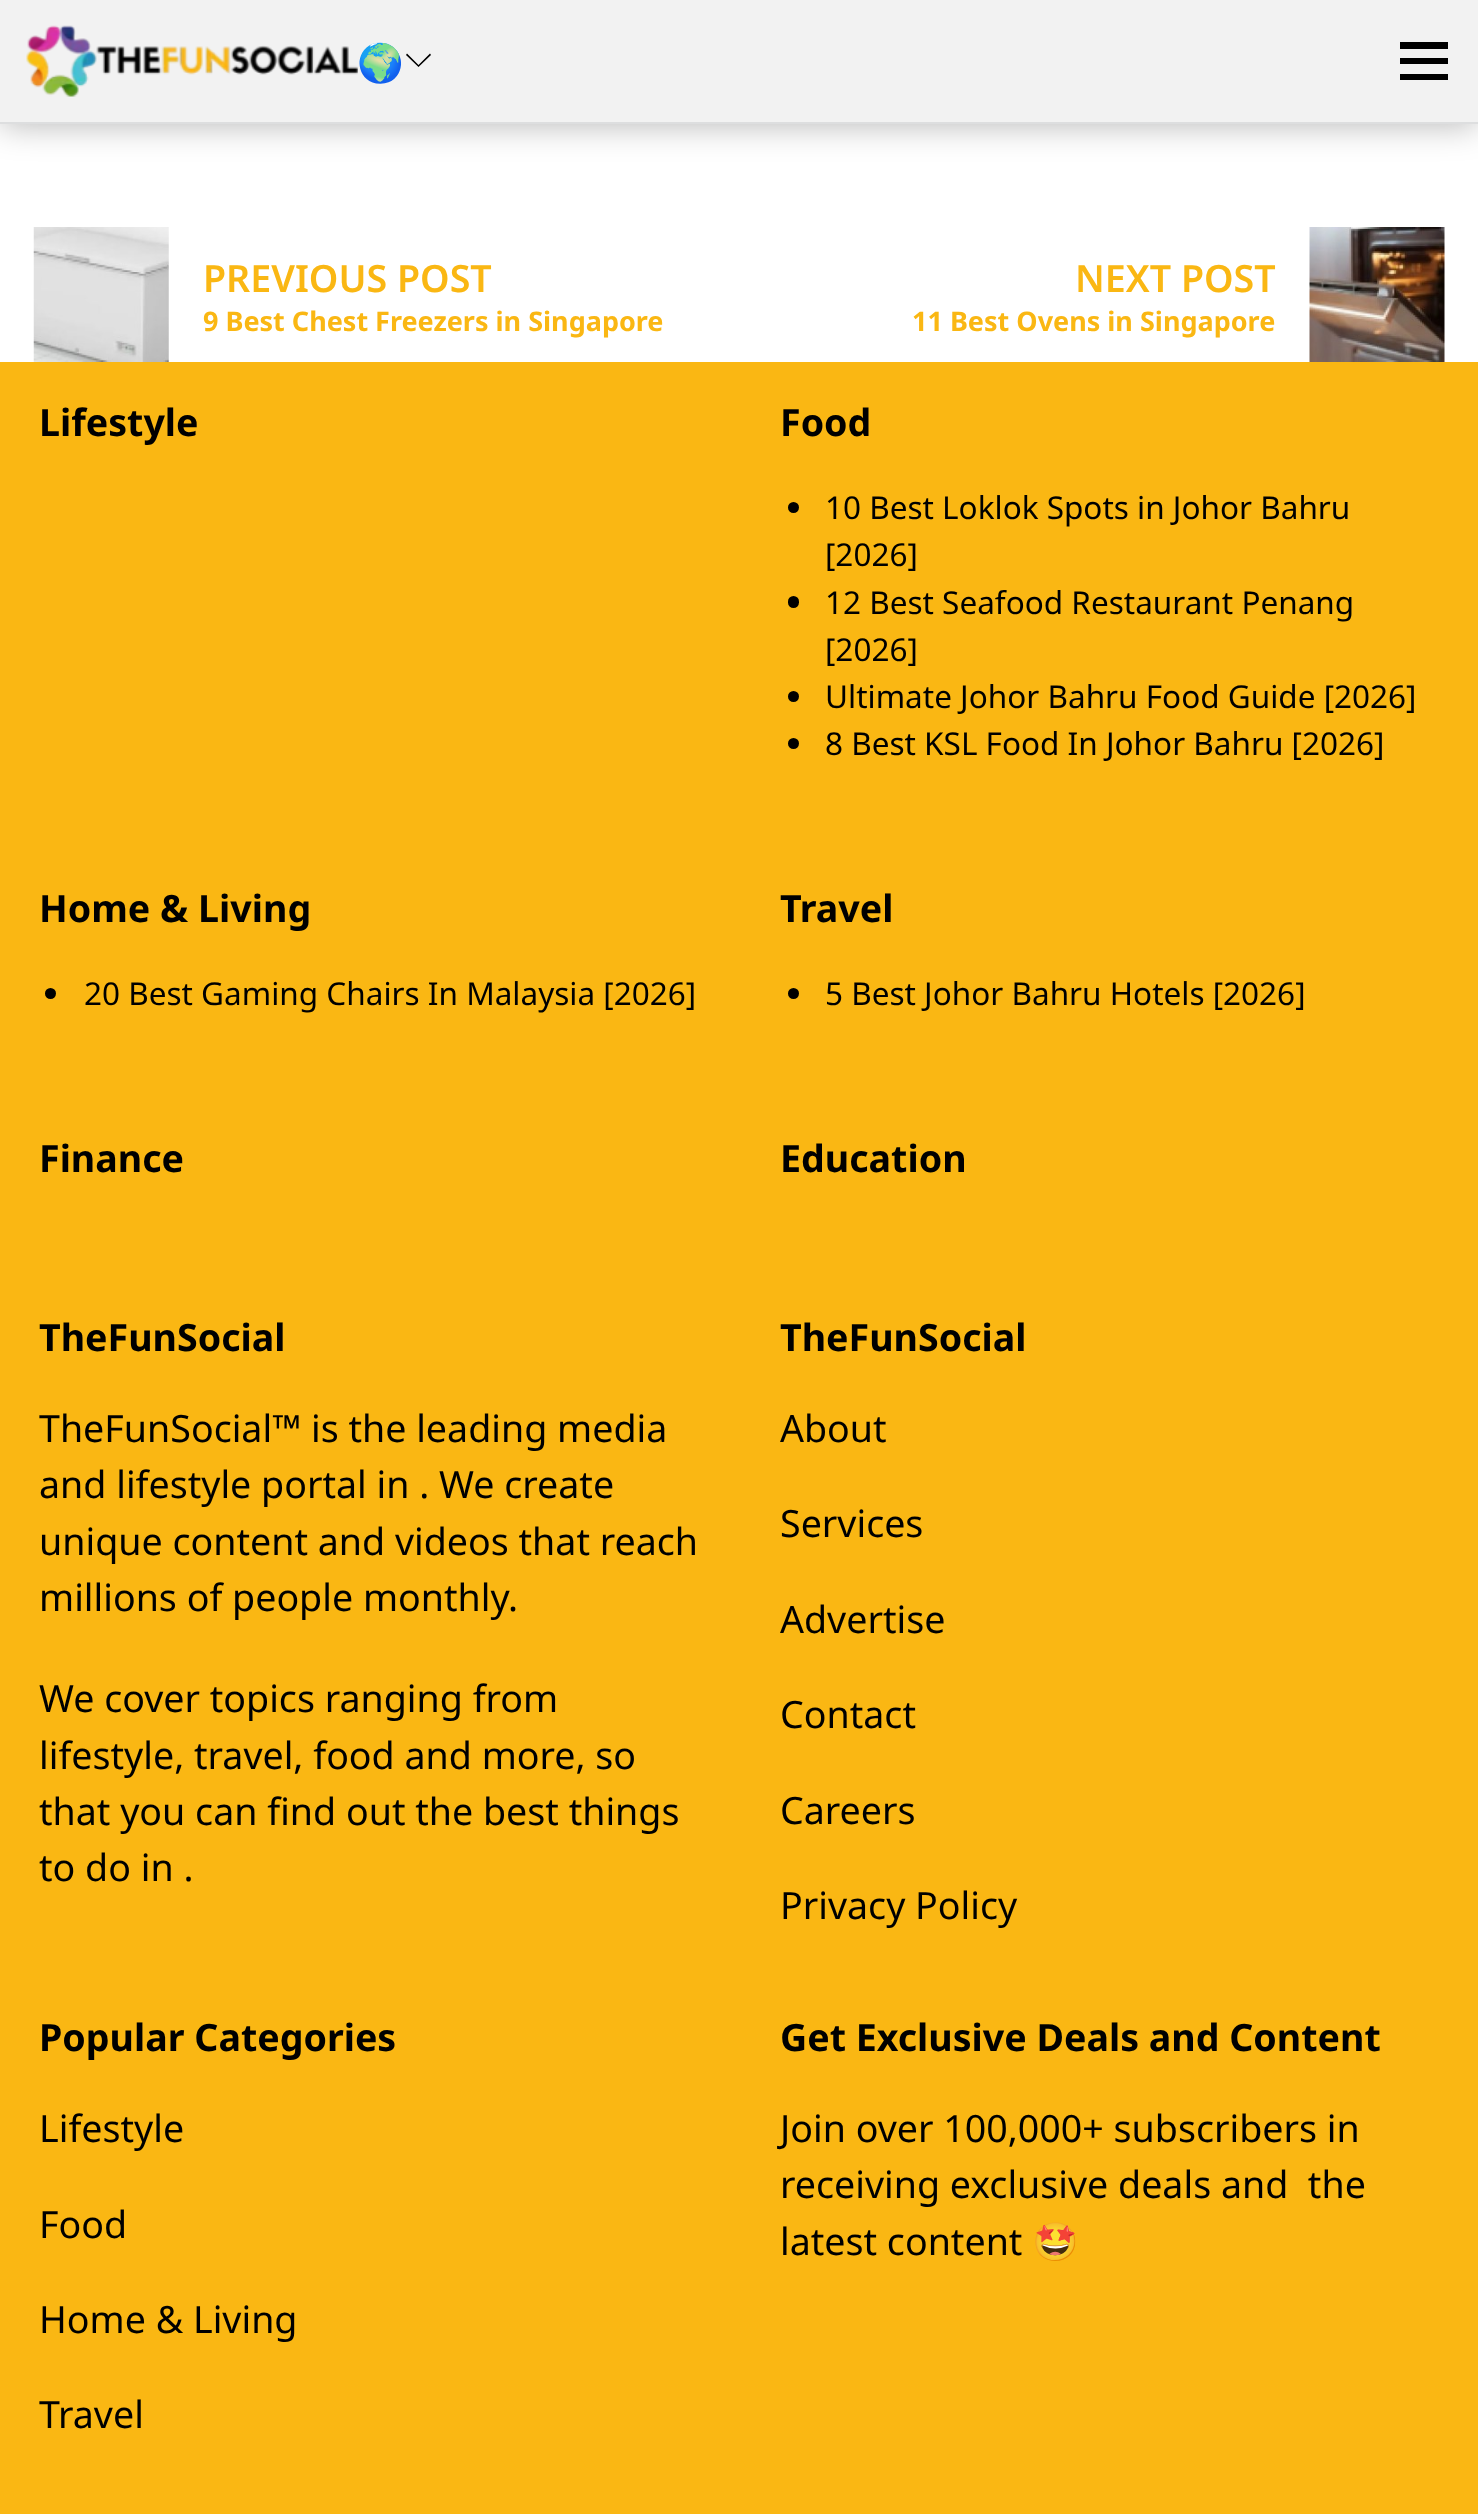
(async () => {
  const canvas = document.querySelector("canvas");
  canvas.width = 1478;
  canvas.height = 2514;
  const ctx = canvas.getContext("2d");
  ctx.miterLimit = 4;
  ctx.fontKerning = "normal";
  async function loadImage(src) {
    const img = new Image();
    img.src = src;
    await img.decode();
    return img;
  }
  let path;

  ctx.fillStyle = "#ffffff";
  ctx.fillRect(0, 0, 1478, 2514);
  ctx.fillStyle = "rgba(0, 0, 0, 0.3)";
  ctx.filter = "blur(17px)";
  ctx.beginPath();
  ctx.rect(0, 0, 1478, 124);
  ctx.fill();
  ctx.filter = "none";
  ctx.fillStyle = "#f2f2f2";
  ctx.fillRect(0, 0, 1478, 122);
  ctx.fillStyle = "#dddedf";
  ctx.fillRect(0, 122, 1478, 2);
  ctx.drawImage(await loadImage("img/1.png"), 26, 25, 332, 72);
  ctx.fillStyle = "#000000";
  path = new Path2D("M431 55L418.5 67L406 55L407 53.5L418.5 65L430 53.5Z");
  ctx.fill(path);
  path = new Path2D("M1448 42V49H1400V42ZM1400 64H1448V58H1400ZM1400 80H1448V74H1400Z");
  ctx.fill(path);
  ctx.drawImage(await loadImage("img/2.png"), 33, 227, 136, 135);
  ctx.drawImage(await loadImage("img/3.png"), 1309, 227, 136, 135);
  ctx.fillStyle = "#fab713";
  ctx.fillRect(0, 362, 1478, 2152);
  ctx.fillStyle = "#000000";
  ctx.beginPath();
  ctx.arc(793.5, 507.5, 5.5, 0, Math.PI * 2);
  ctx.fill();
  ctx.beginPath();
  ctx.roundRect(788, 596, 11, 12, 5.5);
  ctx.fill();
  ctx.beginPath();
  ctx.arc(793.5, 696.5, 5.5, 0, Math.PI * 2);
  ctx.fill();
  ctx.beginPath();
  ctx.arc(793.5, 743.5, 5.5, 0, Math.PI * 2);
  ctx.fill();
  ctx.beginPath();
  ctx.arc(50.5, 993.5, 5.5, 0, Math.PI * 2);
  ctx.fill();
  ctx.beginPath();
  ctx.arc(793.5, 993.5, 5.5, 0, Math.PI * 2);
  ctx.fill();
  ctx.font = "37.6px Noto Color Emoji";
  ctx.fillText("🌍", 357, 76);
  ctx.font = "600 37.6px Noto Sans";
  ctx.fillStyle = "#fab713";
  ctx.fillText("PREVIOUS POST", 203, 292);
  ctx.font = "bold 27px Noto Sans";
  ctx.fillText("9 Best Chest Freezers in Singapore", 203, 331);
  ctx.font = "600 37.6px Noto Sans";
  ctx.fillText("NEXT POST", 1075, 292);
  ctx.font = "bold 27px Noto Sans";
  ctx.fillText("11 Best Ovens in Singapore", 912, 331);
  ctx.font = "bold 37.6px Noto Sans";
  ctx.fillStyle = "#000000";
  ctx.fillText("Lifestyle", 39, 436);
  ctx.fillText("Food", 780, 436);
  ctx.font = "31.5px Noto Sans";
  for (const [text, x, y] of [
    ["10 Best Loklok Spots in Johor Bahru", 825, 519],
    ["[2026]", 825, 566],
    ["12 Best Seafood Restaurant Penang", 825, 614],
    ["[2026]", 825, 661],
    ["Ultimate Johor Bahru Food Guide [2026]", 825, 708],
    ["8 Best KSL Food In Johor Bahru [2026]", 825, 755],
  ]) {
    ctx.fillText(text, x, y);
  }
  ctx.font = "bold 37.6px Noto Sans";
  ctx.fillText("Home & Living", 39, 922);
  ctx.font = "31.5px Noto Sans";
  ctx.fillText("20 Best Gaming Chairs In Malaysia [2026]", 84, 1005);
  ctx.font = "bold 37.6px Noto Sans";
  ctx.fillText("Travel", 780, 922);
  ctx.font = "31.5px Noto Sans";
  ctx.fillText("5 Best Johor Bahru Hotels [2026]", 825, 1005);
  ctx.font = "bold 37.6px Noto Sans";
  for (const [text, x, y] of [
    ["Finance", 39, 1172],
    ["Education", 780, 1172],
    ["TheFunSocial", 39, 1351],
  ]) {
    ctx.fillText(text, x, y);
  }
  ctx.font = "37.6px Noto Sans";
  for (const [text, x, y] of [
    ["TheFunSocial™ is the leading media", 39, 1442],
    ["and lifestyle portal in . We create", 39, 1498],
    ["unique content and videos that reach", 39, 1555],
    ["millions of people monthly.", 39, 1611],
    ["We cover topics ranging from", 39, 1712],
    ["lifestyle, travel, food and more, so", 39, 1769],
    ["that you can find out the best things", 39, 1825],
    ["to do in .", 39, 1881],
  ]) {
    ctx.fillText(text, x, y);
  }
  ctx.font = "bold 37.6px Noto Sans";
  ctx.fillText("TheFunSocial", 780, 1351);
  ctx.font = "37.6px Noto Sans";
  for (const [text, x, y] of [
    ["About", 780, 1442],
    ["Services", 780, 1537],
    ["Advertise", 780, 1633],
    ["Contact", 780, 1728],
    ["Careers", 780, 1824],
    ["Privacy Policy", 780, 1919],
  ]) {
    ctx.fillText(text, x, y);
  }
  ctx.font = "bold 37.6px Noto Sans";
  ctx.fillText("Popular Categories", 39, 2051);
  ctx.font = "37.6px Noto Sans";
  for (const [text, x, y] of [
    ["Lifestyle", 39, 2142],
    ["Food", 39, 2238],
    ["Home & Living", 39, 2333],
    ["Travel", 39, 2428],
  ]) {
    ctx.fillText(text, x, y);
  }
  ctx.font = "bold 37.6px Noto Sans";
  ctx.fillText("Get Exclusive Deals and Content", 780, 2051);
  ctx.font = "37.6px Noto Sans";
  for (const [text, x, y] of [
    ["Join over 100,000+ subscribers in", 780, 2142],
    ["receiving exclusive deals and  the", 780, 2198],
    ["latest content", 780, 2255],
  ]) {
    ctx.fillText(text, x, y);
  }
  ctx.font = "37.6px Noto Color Emoji";
  ctx.fillText("🤩", 1032, 2255);
})();
